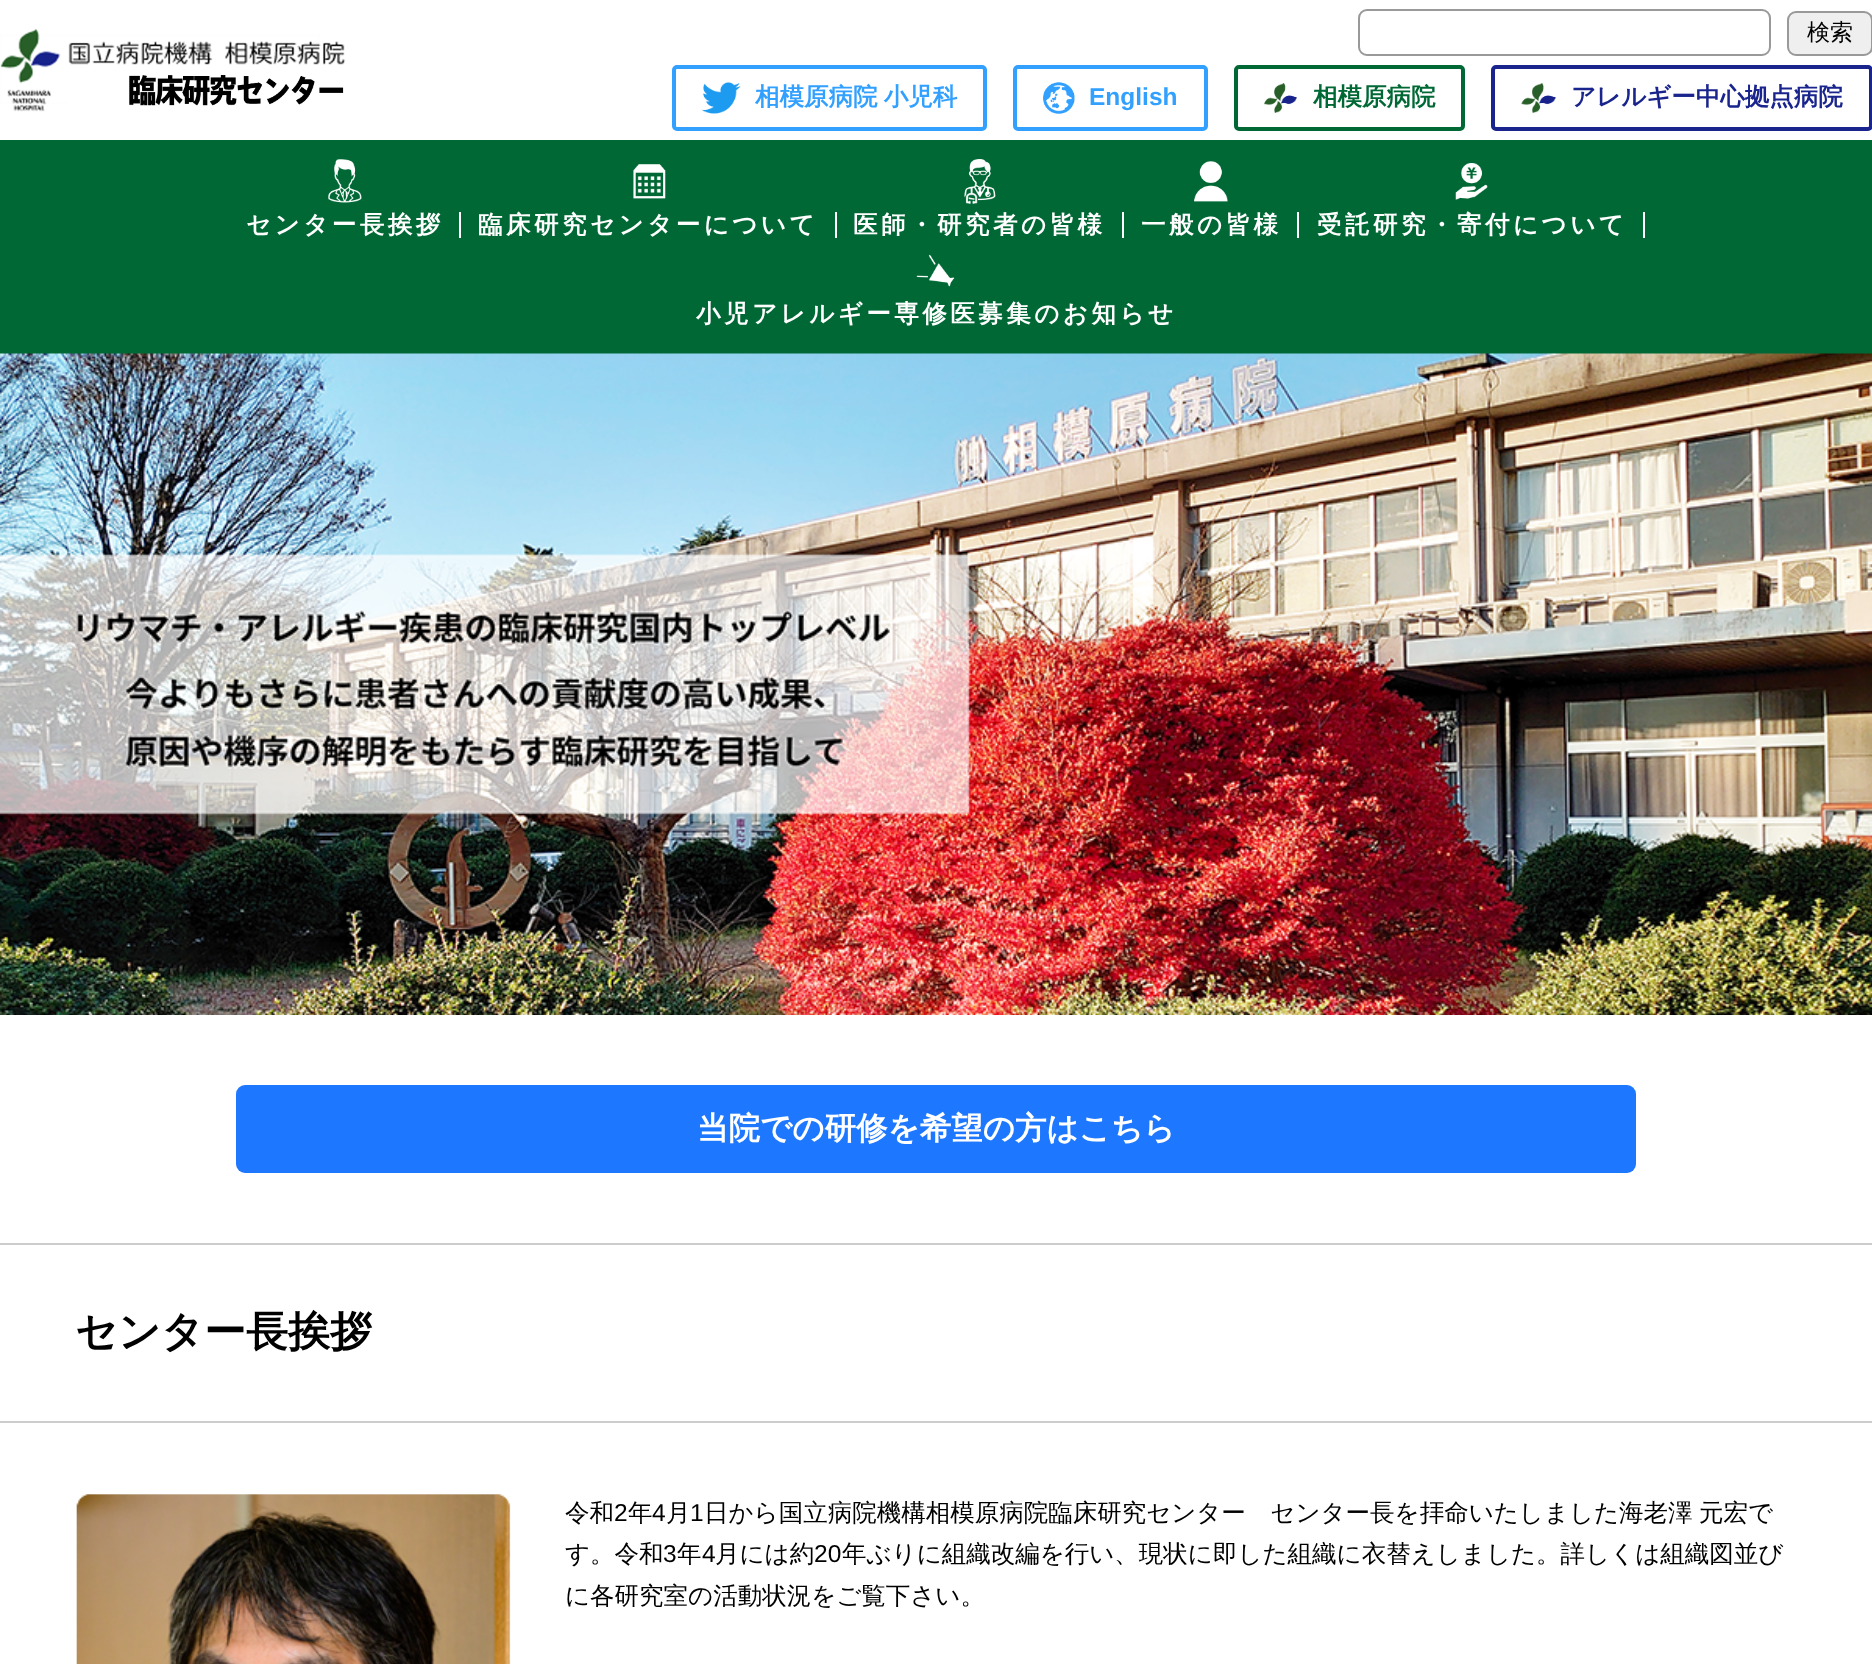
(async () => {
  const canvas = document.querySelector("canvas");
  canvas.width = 1872;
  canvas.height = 1664;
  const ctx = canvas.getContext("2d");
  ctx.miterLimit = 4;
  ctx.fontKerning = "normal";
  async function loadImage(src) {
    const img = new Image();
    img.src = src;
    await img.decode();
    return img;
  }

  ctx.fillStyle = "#ffffff";
  ctx.fillRect(0, 0, 1872, 1664);
  ctx.drawImage(await loadImage("img/1.png"), 0, 29, 346, 83);
  ctx.beginPath();
  ctx.roundRect(1359, 10, 411, 45, 8);
  ctx.strokeStyle = "#999999";
  ctx.lineWidth = 2;
  ctx.stroke();
  ctx.fillStyle = "#efefef";
  ctx.beginPath();
  ctx.roundRect(1788, 12, 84, 43, 8);
  ctx.fill();
  ctx.stroke();
  ctx.beginPath();
  ctx.roundRect(674, 67, 311, 62, 3);
  ctx.strokeStyle = "#31a0ff";
  ctx.lineWidth = 4;
  ctx.stroke();
  ctx.drawImage(await loadImage("img/2.png"), 701, 82, 40, 32);
  ctx.beginPath();
  ctx.roundRect(1015, 67, 191, 62, 3);
  ctx.stroke();
  ctx.drawImage(await loadImage("img/3.png"), 1043, 82, 32, 32);
  ctx.beginPath();
  ctx.roundRect(1236, 67, 227, 62, 3);
  ctx.strokeStyle = "#006835";
  ctx.stroke();
  ctx.drawImage(await loadImage("img/4.png"), 1264, 83, 33, 30);
  ctx.beginPath();
  ctx.roundRect(1493, 67, 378, 62, 3);
  ctx.strokeStyle = "#19248c";
  ctx.stroke();
  ctx.drawImage(await loadImage("img/5.png"), 1521, 83, 35, 30);
  ctx.fillStyle = "#006835";
  ctx.fillRect(0, 140, 1872, 214);
  ctx.drawImage(await loadImage("img/6.png"), 328, 159, 34, 44);
  ctx.fillStyle = "#ffffff";
  ctx.fillRect(459, 212, 2, 26);
  ctx.drawImage(await loadImage("img/7.png"), 633, 164, 33, 35);
  ctx.fillRect(835, 212, 2, 26);
  ctx.drawImage(await loadImage("img/8.png"), 964, 159, 32, 45);
  ctx.fillRect(1122, 212, 2, 26);
  ctx.drawImage(await loadImage("img/9.png"), 1194, 161, 34, 41);
  ctx.fillRect(1297, 212, 2, 26);
  ctx.drawImage(await loadImage("img/10.png"), 1455, 163, 33, 37);
  ctx.fillRect(1643, 212, 2, 26);
  ctx.drawImage(await loadImage("img/11.png"), 916, 254, 39, 33);
  ctx.drawImage(await loadImage("img/12.png"), 0, 353, 1872, 662);
  ctx.fillStyle = "#1e78ff";
  ctx.beginPath();
  ctx.roundRect(236, 1085, 1400, 88, 9);
  ctx.fill();
  ctx.fillStyle = "#cccccc";
  ctx.fillRect(0, 1243, 1872, 2);
  ctx.fillRect(0, 1421, 1872, 2);
  ctx.drawImage(await loadImage("img/13.png"), 76, 1494, 435, 170);
  ctx.font = "500 23px WenQuanYi Zen Hei";
  ctx.fillStyle = "#000000";
  ctx.fillText("検索", 1807, 40);
  ctx.wordSpacing = "-1px";
  ctx.font = "bold 24.5px WenQuanYi Zen Hei";
  ctx.fillStyle = "#31a0ff";
  ctx.fillText("相模原病院 小児科", 755, 105);
  ctx.wordSpacing = "0px";
  ctx.font = "bold 24.5px Liberation Sans";
  ctx.fillText("English", 1089, 105);
  ctx.font = "bold 24.5px WenQuanYi Zen Hei";
  ctx.fillStyle = "#006835";
  ctx.fillText("相模原病院", 1313, 105);
  ctx.fillStyle = "#19248c";
  ctx.fillText("アレルギー中心拠点病院", 1571, 105);
  ctx.letterSpacing = "3.5px";
  ctx.fillStyle = "#ffffff";
  for (const [text, x, y] of [
    ["センター長挨拶", 246, 233],
    ["臨床研究センターについて", 478, 233],
    ["医師・研究者の皆様", 853, 233],
    ["一般の皆様", 1141, 233],
    ["受託研究・寄付について", 1317, 233],
    ["小児アレルギー専修医募集のお知らせ", 696, 322],
  ]) {
    ctx.fillText(text, x, y);
  }
  ctx.letterSpacing = "0px";
  ctx.font = "bold 31.5px WenQuanYi Zen Hei";
  ctx.fillText("当院での研修を希望の方はこちら", 697, 1139);
  ctx.font = "bold 42px WenQuanYi Zen Hei";
  ctx.fillStyle = "#000000";
  ctx.fillText("センター長挨拶", 75, 1346);
  ctx.font = "500 24.5px WenQuanYi Zen Hei";
  ctx.fillText("令和", 565, 1521);
  ctx.font = "24.5px Liberation Sans";
  ctx.fillText("2", 614, 1521);
  ctx.font = "500 24.5px WenQuanYi Zen Hei";
  ctx.fillText("年", 628, 1521);
  ctx.font = "24.5px Liberation Sans";
  ctx.fillText("4", 652, 1521);
  ctx.font = "500 24.5px WenQuanYi Zen Hei";
  ctx.fillText("月", 666, 1521);
  ctx.font = "24.5px Liberation Sans";
  ctx.fillText("1", 690, 1521);
  ctx.font = "500 24.5px WenQuanYi Zen Hei";
  for (const [text, x, y] of [
    ["日から国立病院機構相模原病院臨床研究センター　センター長を拝命いたしました海老澤", 704, 1521],
    ["元宏で", 1699, 1521],
    ["す。令和", 565, 1562],
  ]) {
    ctx.fillText(text, x, y);
  }
  ctx.font = "24.5px Liberation Sans";
  ctx.fillText("3", 663, 1562);
  ctx.font = "500 24.5px WenQuanYi Zen Hei";
  ctx.fillText("年", 677, 1562);
  ctx.font = "24.5px Liberation Sans";
  ctx.fillText("4", 702, 1562);
  ctx.font = "500 24.5px WenQuanYi Zen Hei";
  ctx.fillText("月には約", 715, 1562);
  ctx.font = "24.5px Liberation Sans";
  ctx.fillText("20", 814, 1562);
  ctx.font = "500 24.5px WenQuanYi Zen Hei";
  ctx.fillText("年ぶりに組織改編を行い、現状に即した組織に衣替えしました。詳しくは組織図並び", 842, 1562);
  ctx.fillText("に各研究室の活動状況をご覧下さい。", 565, 1604);
})();
